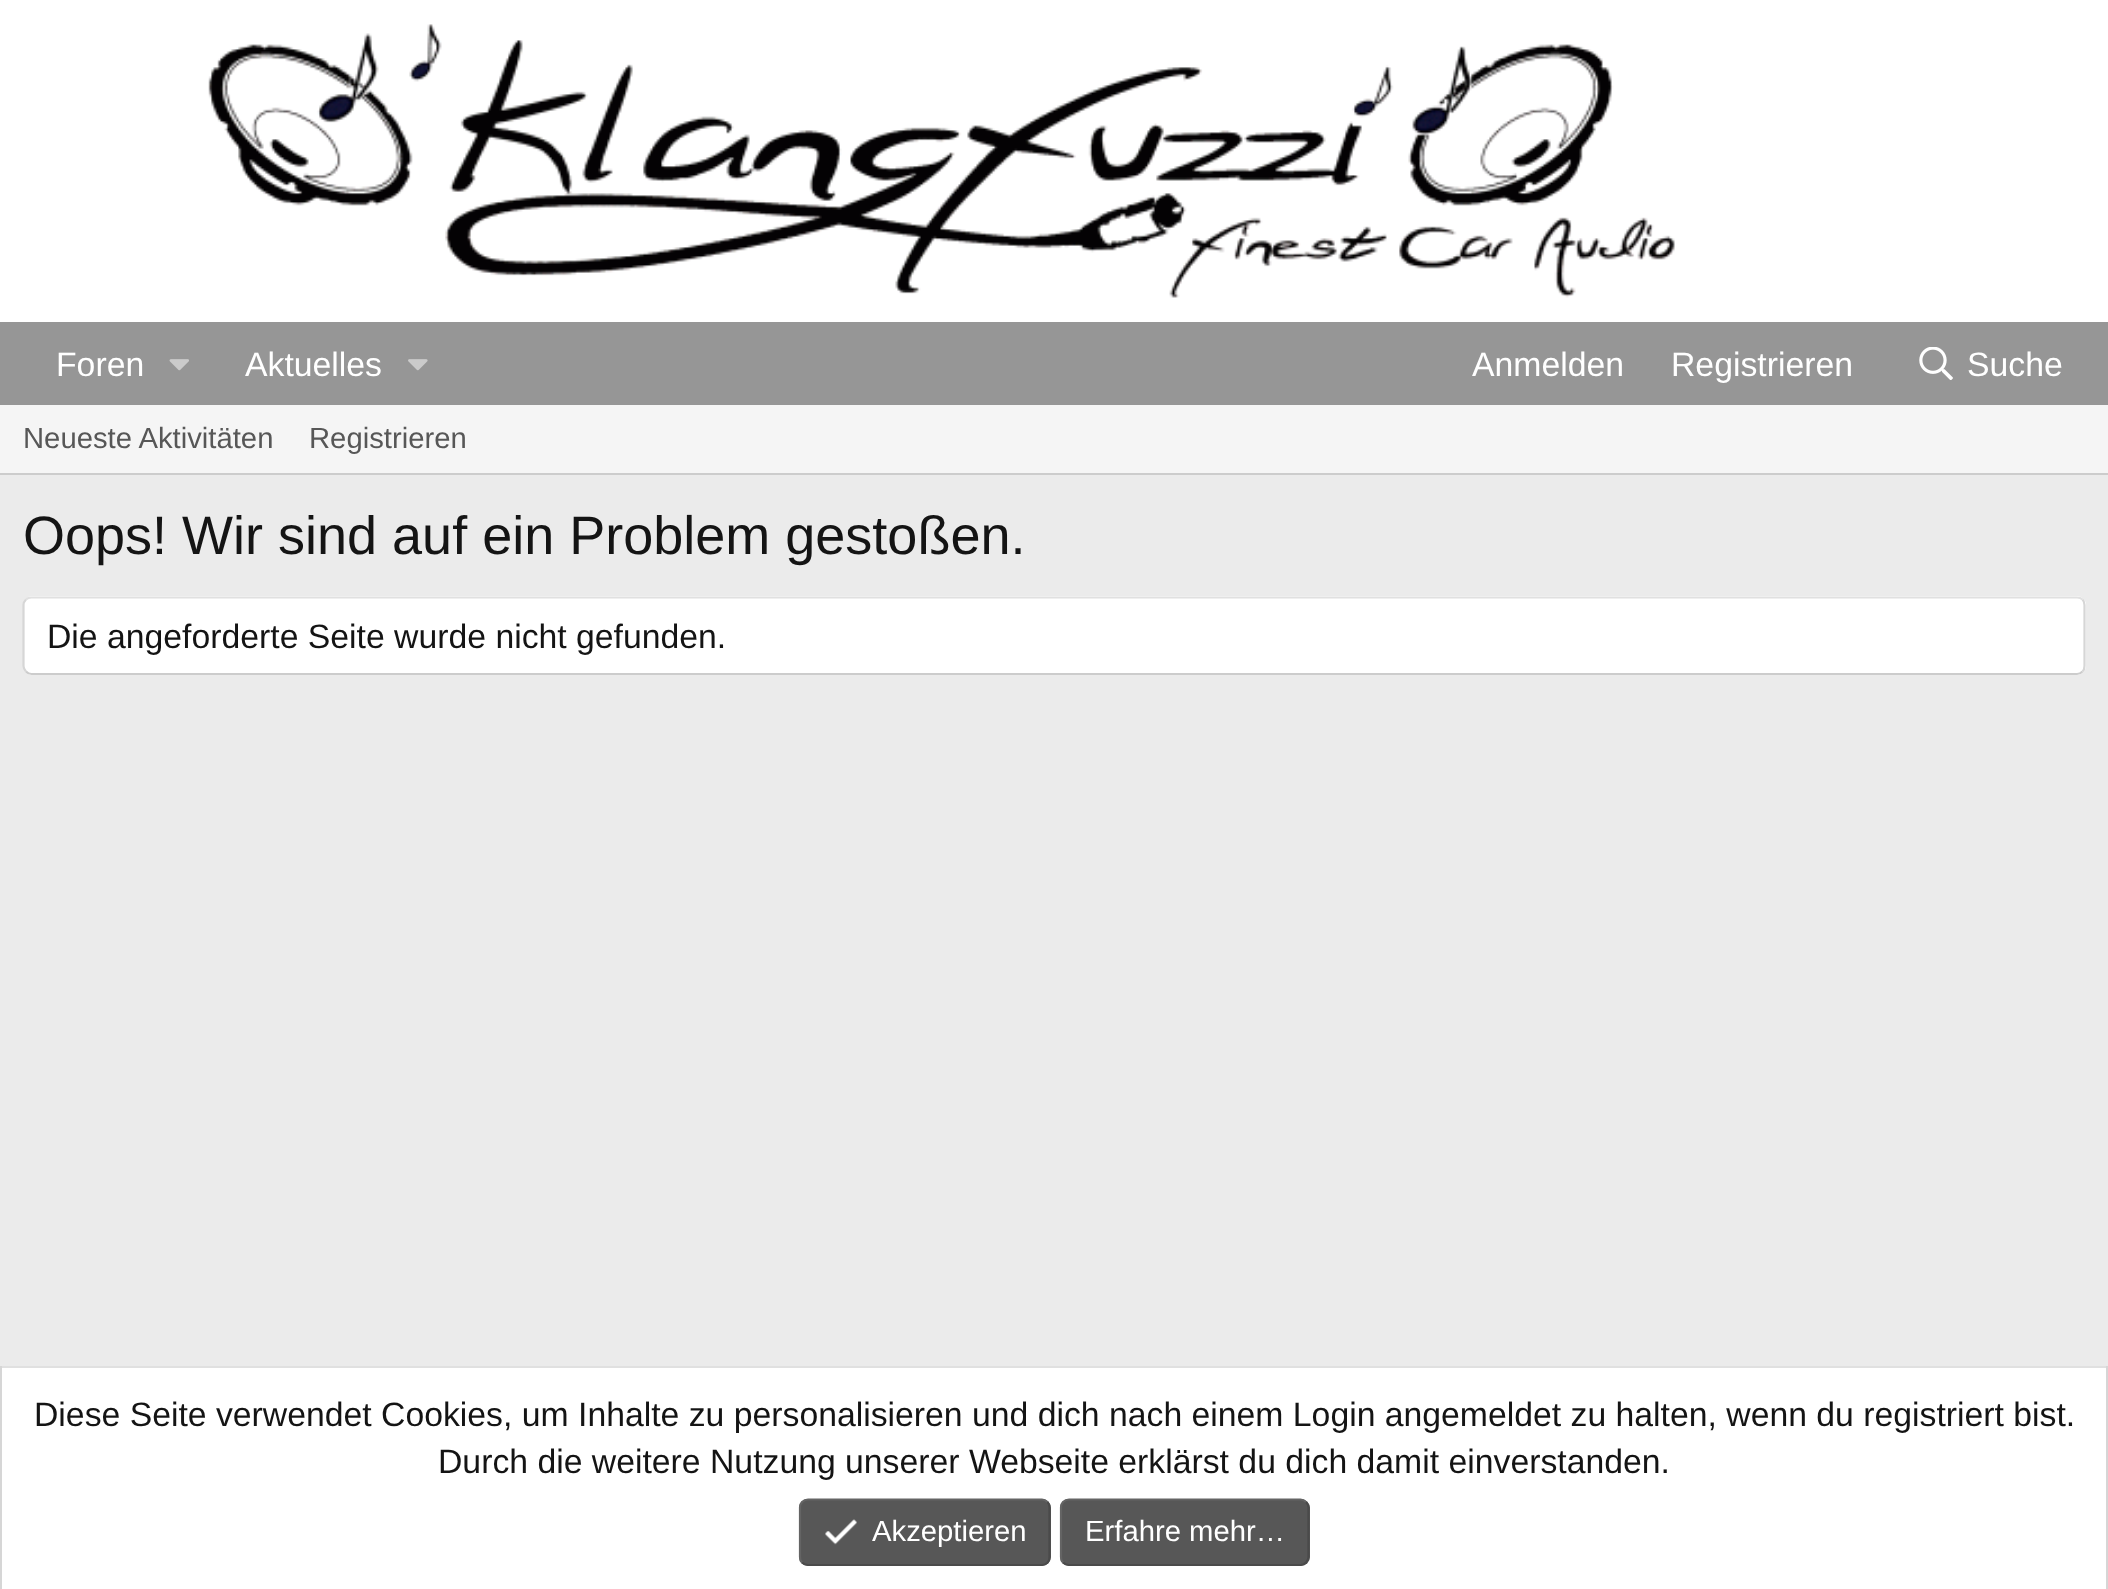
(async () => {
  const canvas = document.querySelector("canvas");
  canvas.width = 2108;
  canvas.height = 1589;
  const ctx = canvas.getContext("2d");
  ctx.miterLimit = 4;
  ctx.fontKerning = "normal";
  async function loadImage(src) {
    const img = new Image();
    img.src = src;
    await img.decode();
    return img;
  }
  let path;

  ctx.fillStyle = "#ebebeb";
  ctx.fillRect(0, 0, 2108, 1589);
  ctx.fillStyle = "#ffffff";
  ctx.fillRect(0, 0, 2108, 322);
  ctx.drawImage(await loadImage("img/1.png"), 208, 24, 1467, 274);
  ctx.fillStyle = "#969696";
  ctx.fillRect(0, 322, 2108, 83);
  ctx.drawImage(await loadImage("img/2.png"), 169, 359, 20, 12);
  ctx.drawImage(await loadImage("img/3.png"), 408, 359, 20, 12);
  ctx.drawImage(await loadImage("img/4.png"), 1919, 347, 34, 33);
  ctx.fillStyle = "#f5f5f5";
  ctx.fillRect(0, 405, 2108, 68);
  ctx.fillStyle = "#cccccc";
  ctx.fillRect(0, 473, 2108, 2);
  ctx.fillStyle = "#ffffff";
  ctx.beginPath();
  ctx.roundRect(23, 596, 2063, 79, 9);
  ctx.fill();
  path = new Path2D("M26 599.5C27.5 598 29.5 597.5 31.5 597.5H2077C2079 597.5 2081 598 2082.5 599.5");
  ctx.strokeStyle = "#e0e0e0";
  ctx.lineWidth = 2.2;
  ctx.stroke(path);
  path = new Path2D("M2082.5 599.5C2084 601 2084.5 603 2084.5 605V666C2084.5 668 2084 670 2082.5 671.5");
  ctx.strokeStyle = "#d6d6d6";
  ctx.stroke(path);
  path = new Path2D("M2082.5 671.5C2081 673 2079 674 2077 674H31.5C29.5 674 27.5 673 26 671.5");
  ctx.strokeStyle = "#cccccc";
  ctx.stroke(path);
  path = new Path2D("M26 671.5C24.5 670 23.5 668 23.5 666V605C23.5 603 24.5 601 26 599.5");
  ctx.strokeStyle = "#d6d6d6";
  ctx.stroke(path);
  for (const [x, y, w, h, color] of [
    [2, 1368, 2104, 221, "#ffffff"],
    [0, 1366, 2108, 2, "#e0e0e0"],
    [2106, 1366, 2, 223, "#d6d6d6"],
    [0, 1366, 2, 223, "#d6d6d6"],
  ]) {
    ctx.fillStyle = color;
    ctx.fillRect(x, y, w, h);
  }
  ctx.fillStyle = "#575757";
  ctx.beginPath();
  ctx.roundRect(799, 1499, 252, 67, 9);
  ctx.fill();
  path = new Path2D("M1047.5 1502C1049 1503.5 1049.5 1505.5 1049.5 1507.5V1557C1049.5 1559 1049 1561 1047.5 1562.5C1046 1564 1044 1565 1042 1565H808C805.5 1565 803.5 1564 802 1562.5");
  ctx.strokeStyle = "#4a4a4a";
  ctx.stroke(path);
  path = new Path2D("M802 1562.5C800.5 1561 800 1559 800 1557V1507.5C800 1505.5 800.5 1503.5 802 1502C803.5 1500.5 805.5 1499.5 808 1499.5H1042C1044 1499.5 1046 1500.5 1047.5 1502");
  ctx.strokeStyle = "#646464";
  ctx.stroke(path);
  ctx.drawImage(await loadImage("img/5.png"), 825, 1519, 32, 26);
  ctx.beginPath();
  ctx.roundRect(1060, 1499, 250, 67, 9);
  ctx.fill();
  path = new Path2D("M1306 1502C1307.5 1503.5 1308.5 1505.5 1308.5 1507.5V1557C1308.5 1559 1307.5 1561 1306 1562.5C1304.5 1564 1302.5 1565 1300.5 1565H1069C1066.5 1565 1064.5 1564 1063 1562.5");
  ctx.strokeStyle = "#4a4a4a";
  ctx.stroke(path);
  path = new Path2D("M1063 1562.5C1061.5 1561 1061 1559 1061 1557V1507.5C1061 1505.5 1061.5 1503.5 1063 1502C1064.5 1500.5 1066.5 1499.5 1069 1499.5H1300.5C1302.5 1499.5 1304.5 1500.5 1306 1502");
  ctx.strokeStyle = "#646464";
  ctx.stroke(path);
  ctx.font = "33.75px Liberation Sans";
  ctx.fillStyle = "#ffffff";
  for (const [text, x, y] of [
    ["Foren", 56, 376],
    ["Aktuelles", 245, 376],
    ["Anmelden", 1472, 376],
    ["Registrieren", 1671, 376],
    ["Suche", 1967, 376],
  ]) {
    ctx.fillText(text, x, y);
  }
  ctx.font = "29.25px Liberation Sans";
  ctx.fillStyle = "#575757";
  ctx.fillText("Neueste Aktivitäten", 23, 448);
  ctx.fillText("Registrieren", 309, 448);
  ctx.font = "54px Liberation Sans";
  ctx.fillStyle = "#141414";
  ctx.fillText("Oops! Wir sind auf ein Problem gestoßen.", 23, 554);
  ctx.font = "33.75px Liberation Sans";
  for (const [text, x, y] of [
    ["Die angeforderte Seite wurde nicht gefunden.", 47, 648],
    ["Diese Seite verwendet Cookies, um Inhalte zu personalisieren und dich nach einem Login angemeldet zu halten, wenn du registriert bist.", 34, 1426],
    ["Durch die weitere Nutzung unserer Webseite erklärst du dich damit einverstanden.", 438, 1473],
  ]) {
    ctx.fillText(text, x, y);
  }
  ctx.font = "29.25px Liberation Sans";
  ctx.fillStyle = "#ffffff";
  ctx.fillText("Akzeptieren", 872, 1541);
  ctx.fillText("Erfahre mehr…", 1085, 1541);
})();
